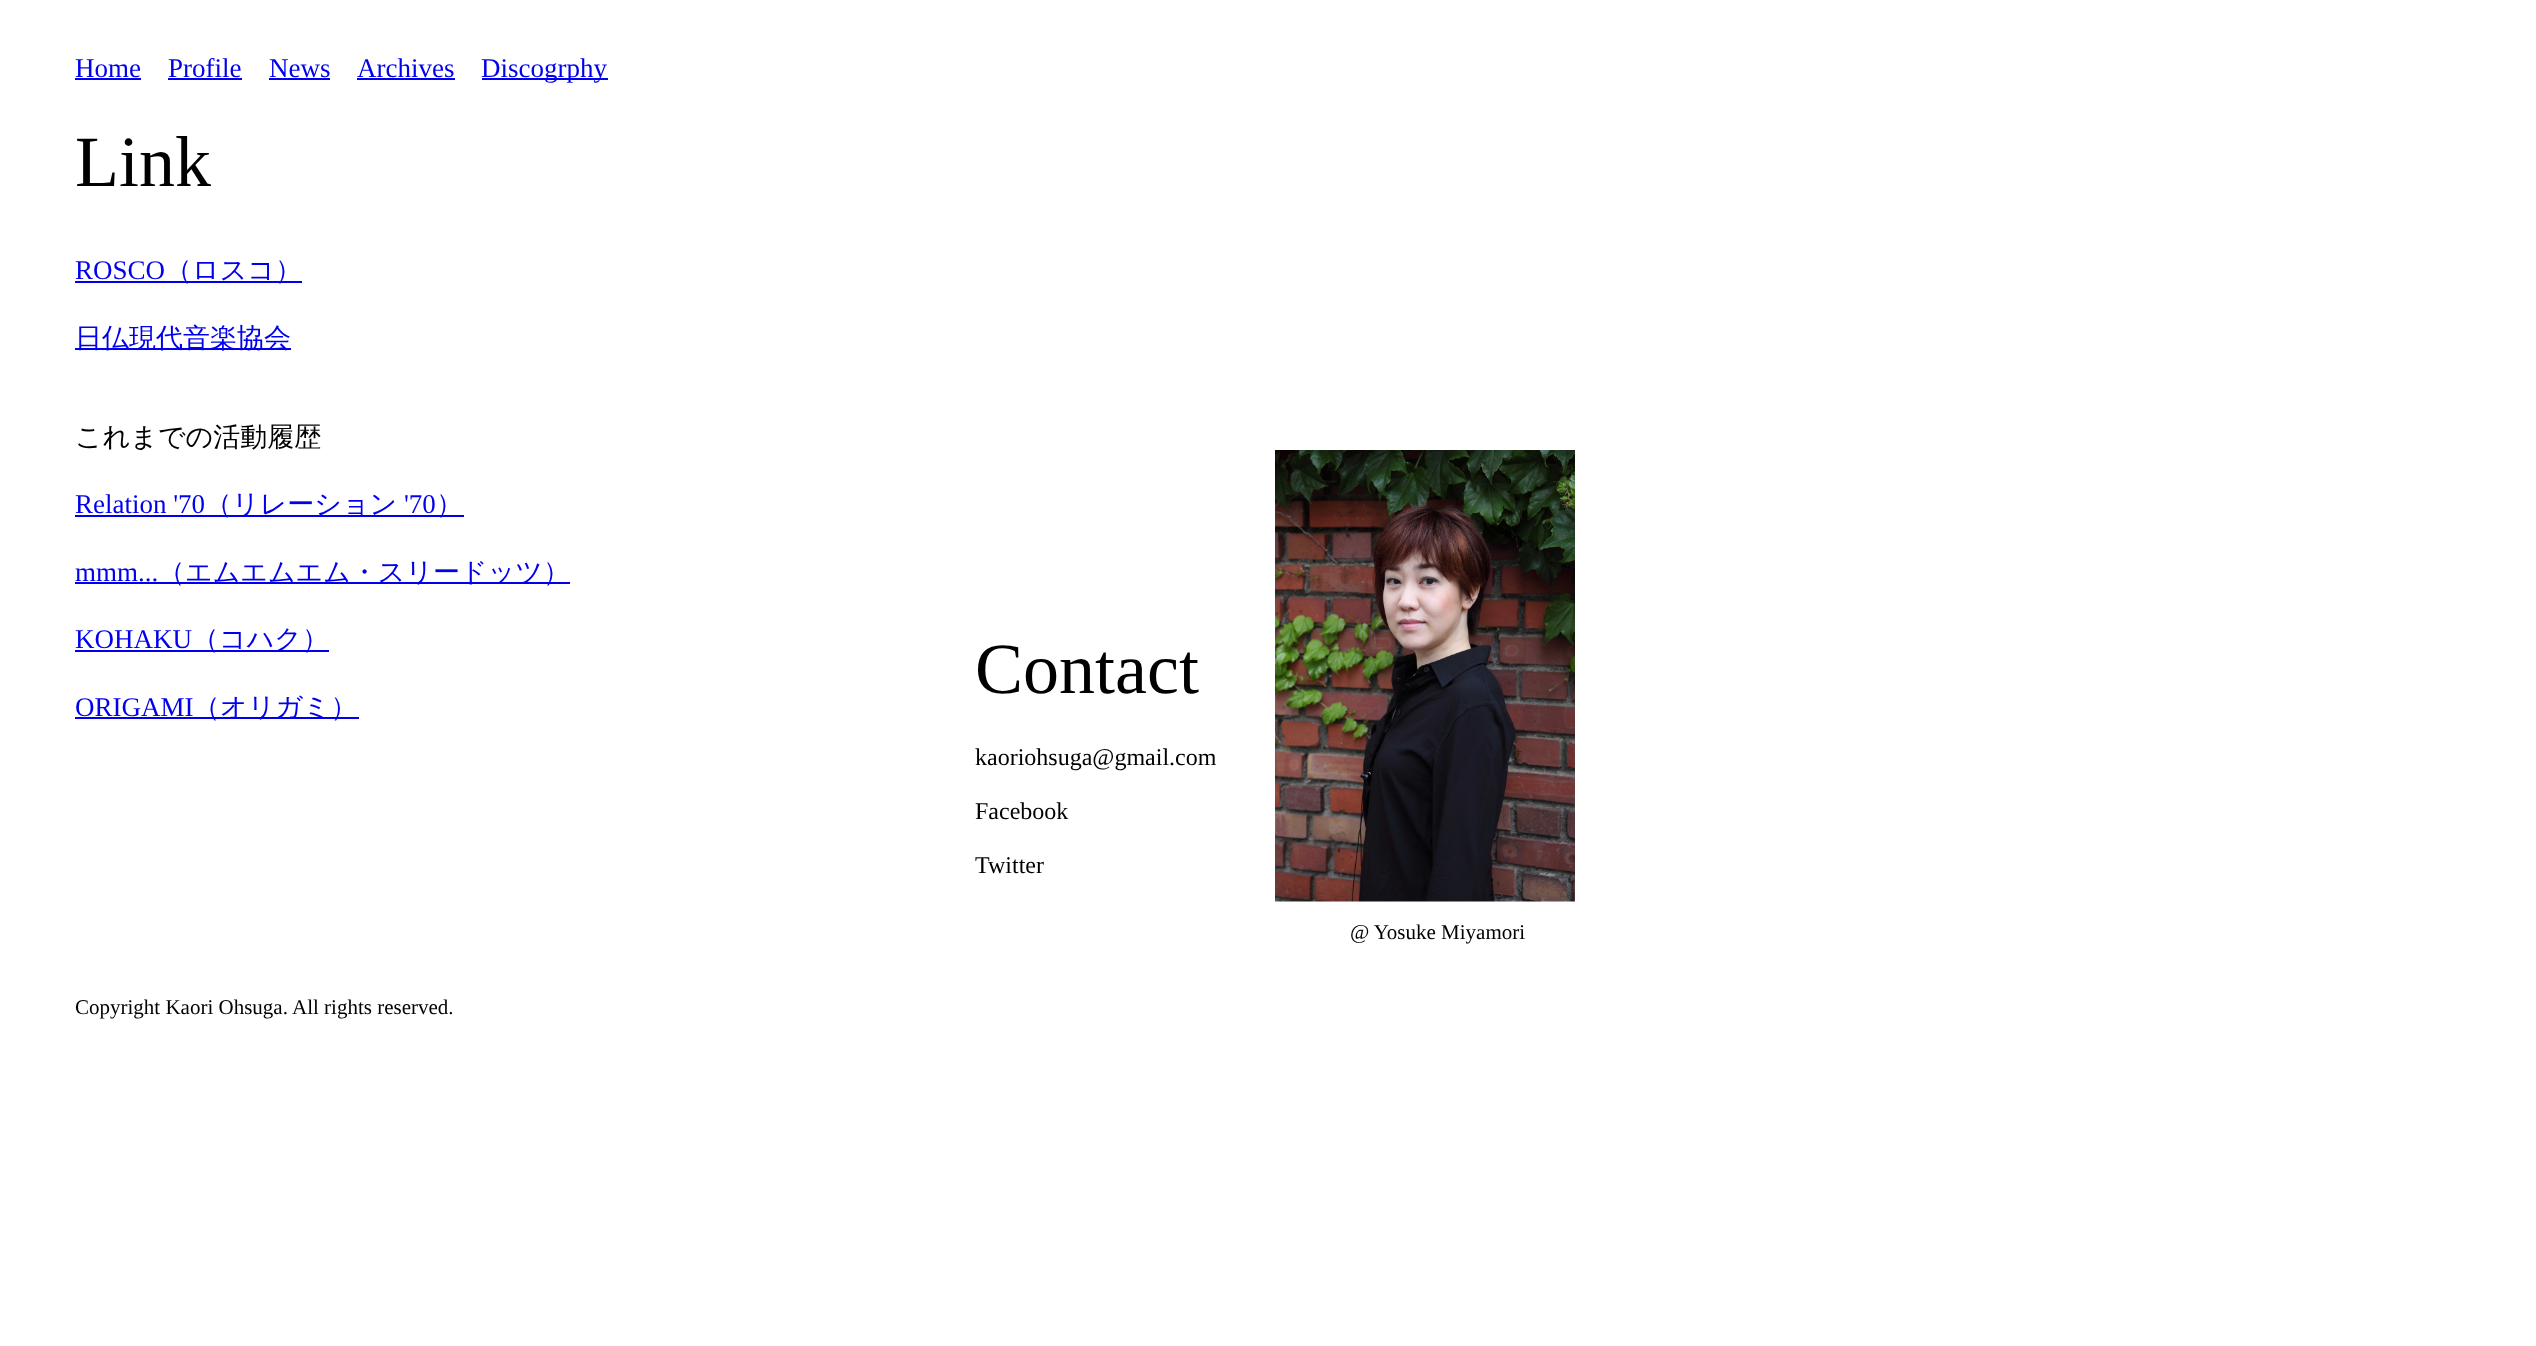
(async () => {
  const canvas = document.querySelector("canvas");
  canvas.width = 2536;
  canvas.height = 1346;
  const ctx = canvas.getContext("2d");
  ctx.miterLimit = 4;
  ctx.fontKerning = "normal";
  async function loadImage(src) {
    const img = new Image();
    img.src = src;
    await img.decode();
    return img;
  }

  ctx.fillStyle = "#ffffff";
  ctx.fillRect(0, 0, 2536, 1346);
  for (const [x, y, w, h, color] of [
    [75, 78, 66, 2, "#0000ee"],
    [168, 78, 74, 2, "#0000ee"],
    [269, 78, 61, 2, "#0000ee"],
    [357, 78, 98, 2, "#0000ee"],
    [482, 78, 126, 2, "#0000ee"],
    [75, 281, 227, 2, "#0000ee"],
    [75, 348, 216, 2, "#0000ee"],
    [75, 515, 389, 2, "#0000ee"],
    [75, 582, 495, 2, "#0000ee"],
    [75, 650, 254, 2, "#0000ee"],
    [75, 717, 284, 2, "#0000ee"],
  ]) {
    ctx.fillStyle = color;
    ctx.fillRect(x, y, w, h);
  }
  ctx.drawImage(await loadImage("img/1.png"), 1275, 450, 300, 452);
  ctx.font = "27px Liberation Serif";
  for (const [text, x, y] of [
    ["Home", 75, 77],
    ["Profile", 168, 77],
    ["News", 269, 77],
    ["Archives", 357, 77],
    ["Discogrphy", 481, 77],
  ]) {
    ctx.fillText(text, x, y);
  }
  ctx.font = "72px Liberation Serif";
  ctx.fillStyle = "#000000";
  ctx.fillText("Link", 75, 186);
  ctx.font = "27px Liberation Serif";
  ctx.fillStyle = "#0000ee";
  ctx.fillText("ROSCO", 75, 279);
  ctx.font = "500 27px WenQuanYi Zen Hei";
  ctx.fillText("（ロスコ）", 165, 279);
  ctx.fillText("日仏現代音楽協会", 75, 347);
  ctx.fillStyle = "#000000";
  ctx.fillText("これまでの活動履歴", 75, 446);
  ctx.font = "27px Liberation Serif";
  ctx.fillStyle = "#0000ee";
  ctx.fillText("Relation '70", 75, 513);
  ctx.font = "500 27px WenQuanYi Zen Hei";
  ctx.fillText("（リレーション", 205, 513);
  ctx.font = "27px Liberation Serif";
  ctx.fillText("'70", 404, 513);
  ctx.font = "500 27px WenQuanYi Zen Hei";
  ctx.fillText("）", 436, 513);
  ctx.font = "27px Liberation Serif";
  ctx.fillText("mmm...", 75, 581);
  ctx.font = "500 27px WenQuanYi Zen Hei";
  ctx.fillText("（エムエムエム・スリードッツ）", 158, 581);
  ctx.font = "27px Liberation Serif";
  ctx.fillText("KOHAKU", 75, 648);
  ctx.font = "500 27px WenQuanYi Zen Hei";
  ctx.fillText("（コハク）", 192, 648);
  ctx.font = "27px Liberation Serif";
  ctx.fillText("ORIGAMI", 75, 716);
  ctx.font = "500 27px WenQuanYi Zen Hei";
  ctx.fillText("（オリガミ）", 193, 716);
  ctx.font = "72px Liberation Serif";
  ctx.fillStyle = "#000000";
  ctx.fillText("Contact", 975, 693);
  ctx.font = "24px Liberation Serif";
  for (const [text, x, y] of [
    ["kaoriohsuga@gmail.com", 975, 765],
    ["Facebook", 975, 819],
    ["Twitter", 975, 873],
  ]) {
    ctx.fillText(text, x, y);
  }
  ctx.font = "21px Liberation Serif";
  ctx.fillText("@ Yosuke Miyamori", 1350, 939);
  ctx.fillText("Copyright Kaori Ohsuga. All rights reserved.", 75, 1014);
})();
